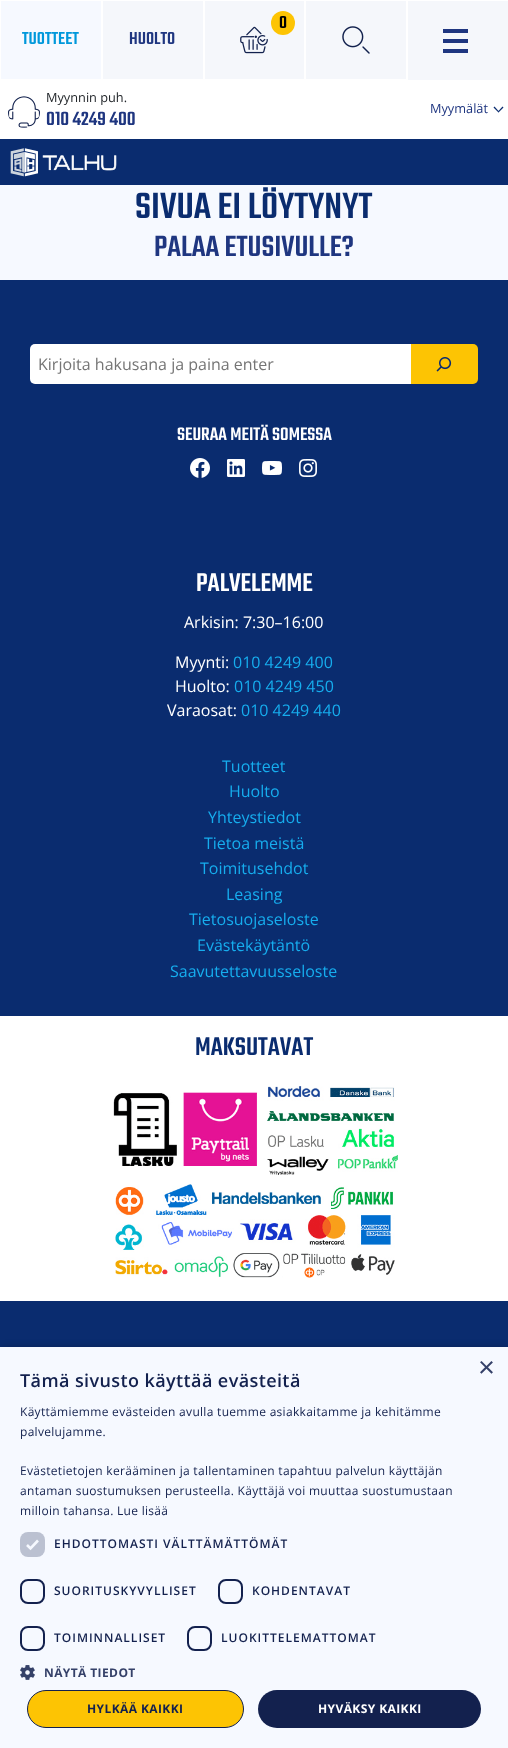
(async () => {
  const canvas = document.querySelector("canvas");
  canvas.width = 508;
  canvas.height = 1748;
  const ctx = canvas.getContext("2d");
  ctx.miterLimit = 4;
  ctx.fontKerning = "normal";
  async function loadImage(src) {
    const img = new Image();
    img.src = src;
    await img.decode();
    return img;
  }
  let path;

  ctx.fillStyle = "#ffffff";
  ctx.fillRect(0, 0, 508, 1748);
  ctx.fillStyle = "#f5f7fb";
  ctx.fillRect(103, 1, 405, 79);
  ctx.strokeStyle = "#ffffff";
  ctx.strokeRect(204.5, 0.5, 100, 79);
  ctx.fillStyle = "#fdc403";
  ctx.beginPath();
  ctx.arc(283, 23, 12, 0, Math.PI * 2);
  ctx.fill();
  ctx.drawImage(await loadImage("img/1.png"), 240, 26, 28, 28);
  ctx.strokeRect(305.5, 0.5, 101, 79);
  ctx.drawImage(await loadImage("img/2.png"), 342, 26, 28, 28);
  for (const [x, y, w, h, color] of [
    [407, 0, 1, 80, "#ffffff"],
    [443, 39, 25, 4, "#1f3680"],
    [443, 29, 25, 4, "#1f3680"],
    [443, 49, 25, 4, "#1f3680"],
    [1, 1, 100, 78, "#f6f9ff"],
  ]) {
    ctx.fillStyle = color;
    ctx.fillRect(x, y, w, h);
  }
  ctx.strokeRect(102.5, 0.5, 101, 79);
  ctx.drawImage(await loadImage("img/3.png"), 8, 96, 32, 32);
  ctx.fillStyle = "#0a2c6f";
  path = new Path2D("M498 111.5L502.5 106.5L503.5 107.5L498.5 112.5Z");
  ctx.fill(path);
  path = new Path2D("M493.5 107.5L494.5 106.5L499 111.5L498.5 112.5Z");
  ctx.fill(path);
  ctx.fillRect(0, 139, 508, 46);
  ctx.drawImage(await loadImage("img/4.png"), 10, 148, 107, 29);
  ctx.fillStyle = "#f6f9ff";
  ctx.fillRect(0, 185, 508, 95);
  ctx.fillStyle = "#0a2c6f";
  ctx.fillRect(0, 280, 508, 1067);
  ctx.fillStyle = "#ffffff";
  ctx.beginPath();
  ctx.roundRect(30, 344, 381, 40, [5, 0, 0, 5]);
  ctx.fill();
  ctx.fillStyle = "#fdc403";
  ctx.beginPath();
  ctx.roundRect(411, 344, 67, 40, [0, 5, 5, 0]);
  ctx.fill();
  ctx.drawImage(await loadImage("img/5.png"), 436, 357, 16, 15);
  ctx.drawImage(await loadImage("img/6.png"), 190, 458, 20, 20);
  ctx.drawImage(await loadImage("img/7.png"), 227, 459, 18, 18);
  ctx.drawImage(await loadImage("img/8.png"), 262, 461, 20, 14);
  ctx.drawImage(await loadImage("img/9.png"), 299, 459, 18, 18);
  ctx.fillStyle = "#ffffff";
  ctx.fillRect(0, 1016, 508, 285);
  ctx.drawImage(await loadImage("img/10.png"), 113, 1086, 285, 89);
  ctx.drawImage(await loadImage("img/11.png"), 115, 1184, 280, 94);
  ctx.fillStyle = "rgba(0, 0, 0, 0.35)";
  ctx.filter = "blur(4px)";
  ctx.beginPath();
  ctx.rect(1, 1349, 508, 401);
  ctx.fill();
  ctx.filter = "none";
  ctx.fillStyle = "#f6f9ff";
  ctx.fillRect(0, 1347, 508, 401);
  ctx.fillStyle = "#bbc1d1";
  ctx.beginPath();
  ctx.roundRect(20, 1532, 25, 25, 8);
  ctx.fill();
  path = new Path2D("M27 1545L30.5 1548.5L38 1540.5");
  ctx.strokeStyle = "#f6f9ff";
  ctx.lineWidth = 2.6;
  ctx.stroke(path);
  ctx.beginPath();
  ctx.roundRect(21, 1580, 23, 23, 7);
  ctx.strokeStyle = "#13214e";
  ctx.lineWidth = 2;
  ctx.stroke();
  ctx.beginPath();
  ctx.roundRect(219, 1580, 23, 23, 7);
  ctx.stroke();
  ctx.beginPath();
  ctx.roundRect(21, 1627, 23, 23, 7);
  ctx.stroke();
  ctx.beginPath();
  ctx.roundRect(188, 1627, 23, 23, 7);
  ctx.stroke();
  ctx.drawImage(await loadImage("img/12.png"), 20, 1665, 15, 15);
  ctx.fillStyle = "#fdc403";
  ctx.beginPath();
  ctx.roundRect(27.5, 1690.5, 216, 37, 18.5);
  ctx.fill();
  ctx.lineWidth = 1;
  ctx.stroke();
  ctx.fillStyle = "#13214e";
  ctx.beginPath();
  ctx.roundRect(258, 1690, 223, 38, 19);
  ctx.fill();
  ctx.font = "500 19px Teko";
  ctx.fillStyle = "#000000";
  ctx.fillText("0", 279, 28);
  ctx.fillStyle = "#0098db";
  ctx.fillText("TUOTTEET", 22, 44);
  ctx.fillStyle = "#1f3680";
  ctx.fillText("HUOLTO", 129, 44);
  ctx.font = "12.75px Open Sans";
  ctx.fillStyle = "#212529";
  ctx.fillText("Myynnin puh.", 46, 102);
  ctx.font = "500 21px Teko";
  ctx.fillStyle = "#1f3680";
  ctx.fillText("010 4249 400", 46, 125);
  ctx.font = "12.75px Open Sans";
  ctx.fillText("Myymälät", 430, 113);
  ctx.font = "500 40px Teko";
  ctx.fillStyle = "#0a2c6f";
  ctx.fillText("SIVUA EI LÖYTYNYT", 135, 218);
  ctx.font = "500 32px Teko";
  ctx.fillStyle = "#1f3680";
  ctx.fillText("PALAA ETUSIVULLE?", 154, 256);
  ctx.font = "16px Open Sans";
  ctx.fillStyle = "#757575";
  ctx.fillText("Kirjoita hakusana ja paina enter", 38, 370);
  ctx.font = "500 20px Teko";
  ctx.fillStyle = "#ffffff";
  ctx.fillText("SEURAA MEITÄ SOMESSA", 177, 440);
  ctx.font = "500 28px Teko";
  ctx.fillText("PALVELEMME", 196, 591);
  ctx.font = "16px Open Sans";
  ctx.fillText("Arkisin: 7:30–16:00", 184, 628);
  ctx.fillText("Myynti:", 175, 668);
  ctx.fillStyle = "#16adee";
  ctx.fillText("010 4249 400", 233, 668);
  ctx.fillStyle = "#ffffff";
  ctx.fillText("Huolto:", 175, 692);
  ctx.fillStyle = "#16adee";
  ctx.fillText("010 4249 450", 234, 692);
  ctx.fillStyle = "#ffffff";
  ctx.fillText("Varaosat:", 167, 716);
  ctx.fillStyle = "#16adee";
  for (const [text, x, y] of [
    ["010 4249 440", 241, 716],
    ["Tuotteet", 222, 772],
    ["Huolto", 229, 797],
    ["Yhteystiedot", 208, 823],
    ["Tietoa meistä", 204, 849],
    ["Toimitusehdot", 200, 874],
    ["Leasing", 226, 900],
    ["Tietosuojaseloste", 189, 925],
    ["Evästekäytäntö", 197, 951],
    ["Saavutettavuusseloste", 170, 977],
  ]) {
    ctx.fillText(text, x, y);
  }
  ctx.font = "500 28px Teko";
  ctx.fillStyle = "#0a2c6f";
  ctx.fillText("MAKSUTAVAT", 195, 1055);
  ctx.font = "29px Liberation Sans";
  ctx.fillStyle = "#354169";
  ctx.fillText("×", 478, 1377);
  ctx.letterSpacing = "0.4px";
  ctx.font = "600 18px Open Sans";
  ctx.fillStyle = "#13214e";
  ctx.fillText("Tämä sivusto käyttää evästeitä", 20, 1387);
  ctx.letterSpacing = "0.3px";
  ctx.font = "12px Open Sans";
  for (const [text, x, y] of [
    ["Käyttämiemme evästeiden avulla tuemme asiakkaitamme ja kehitämme", 20, 1416],
    ["palvelujamme.", 20, 1436],
    ["Evästetietojen kerääminen ja tallentaminen tapahtuu palvelun käyttäjän", 20, 1475],
    ["antaman suostumuksen perusteella. Käyttäjä voi muuttaa suostumustaan", 20, 1495],
    ["milloin tahansa. Lue lisää", 20, 1515],
  ]) {
    ctx.fillText(text, x, y);
  }
  ctx.letterSpacing = "1px";
  ctx.font = "600 12px Open Sans";
  for (const [text, x, y] of [
    ["EHDOTTOMASTI VÄLTTÄMÄTTÖMÄT", 54, 1548],
    ["SUORITUSKYVYLLISET", 54, 1595],
    ["KOHDENTAVAT", 252, 1595],
    ["TOIMINNALLISET", 54, 1642],
    ["LUOKITTELEMATTOMAT", 221, 1642],
  ]) {
    ctx.fillText(text, x, y);
  }
  ctx.letterSpacing = "0.4px";
  ctx.font = "bold 12px Open Sans";
  ctx.fillStyle = "#354169";
  ctx.fillText("NÄYTÄ TIEDOT", 44, 1677);
  ctx.fillStyle = "#13214e";
  ctx.fillText("HYLKÄÄ KAIKKI", 87, 1713);
  ctx.fillStyle = "#ffffff";
  ctx.fillText("HYVÄKSY KAIKKI", 318, 1713);
})();
